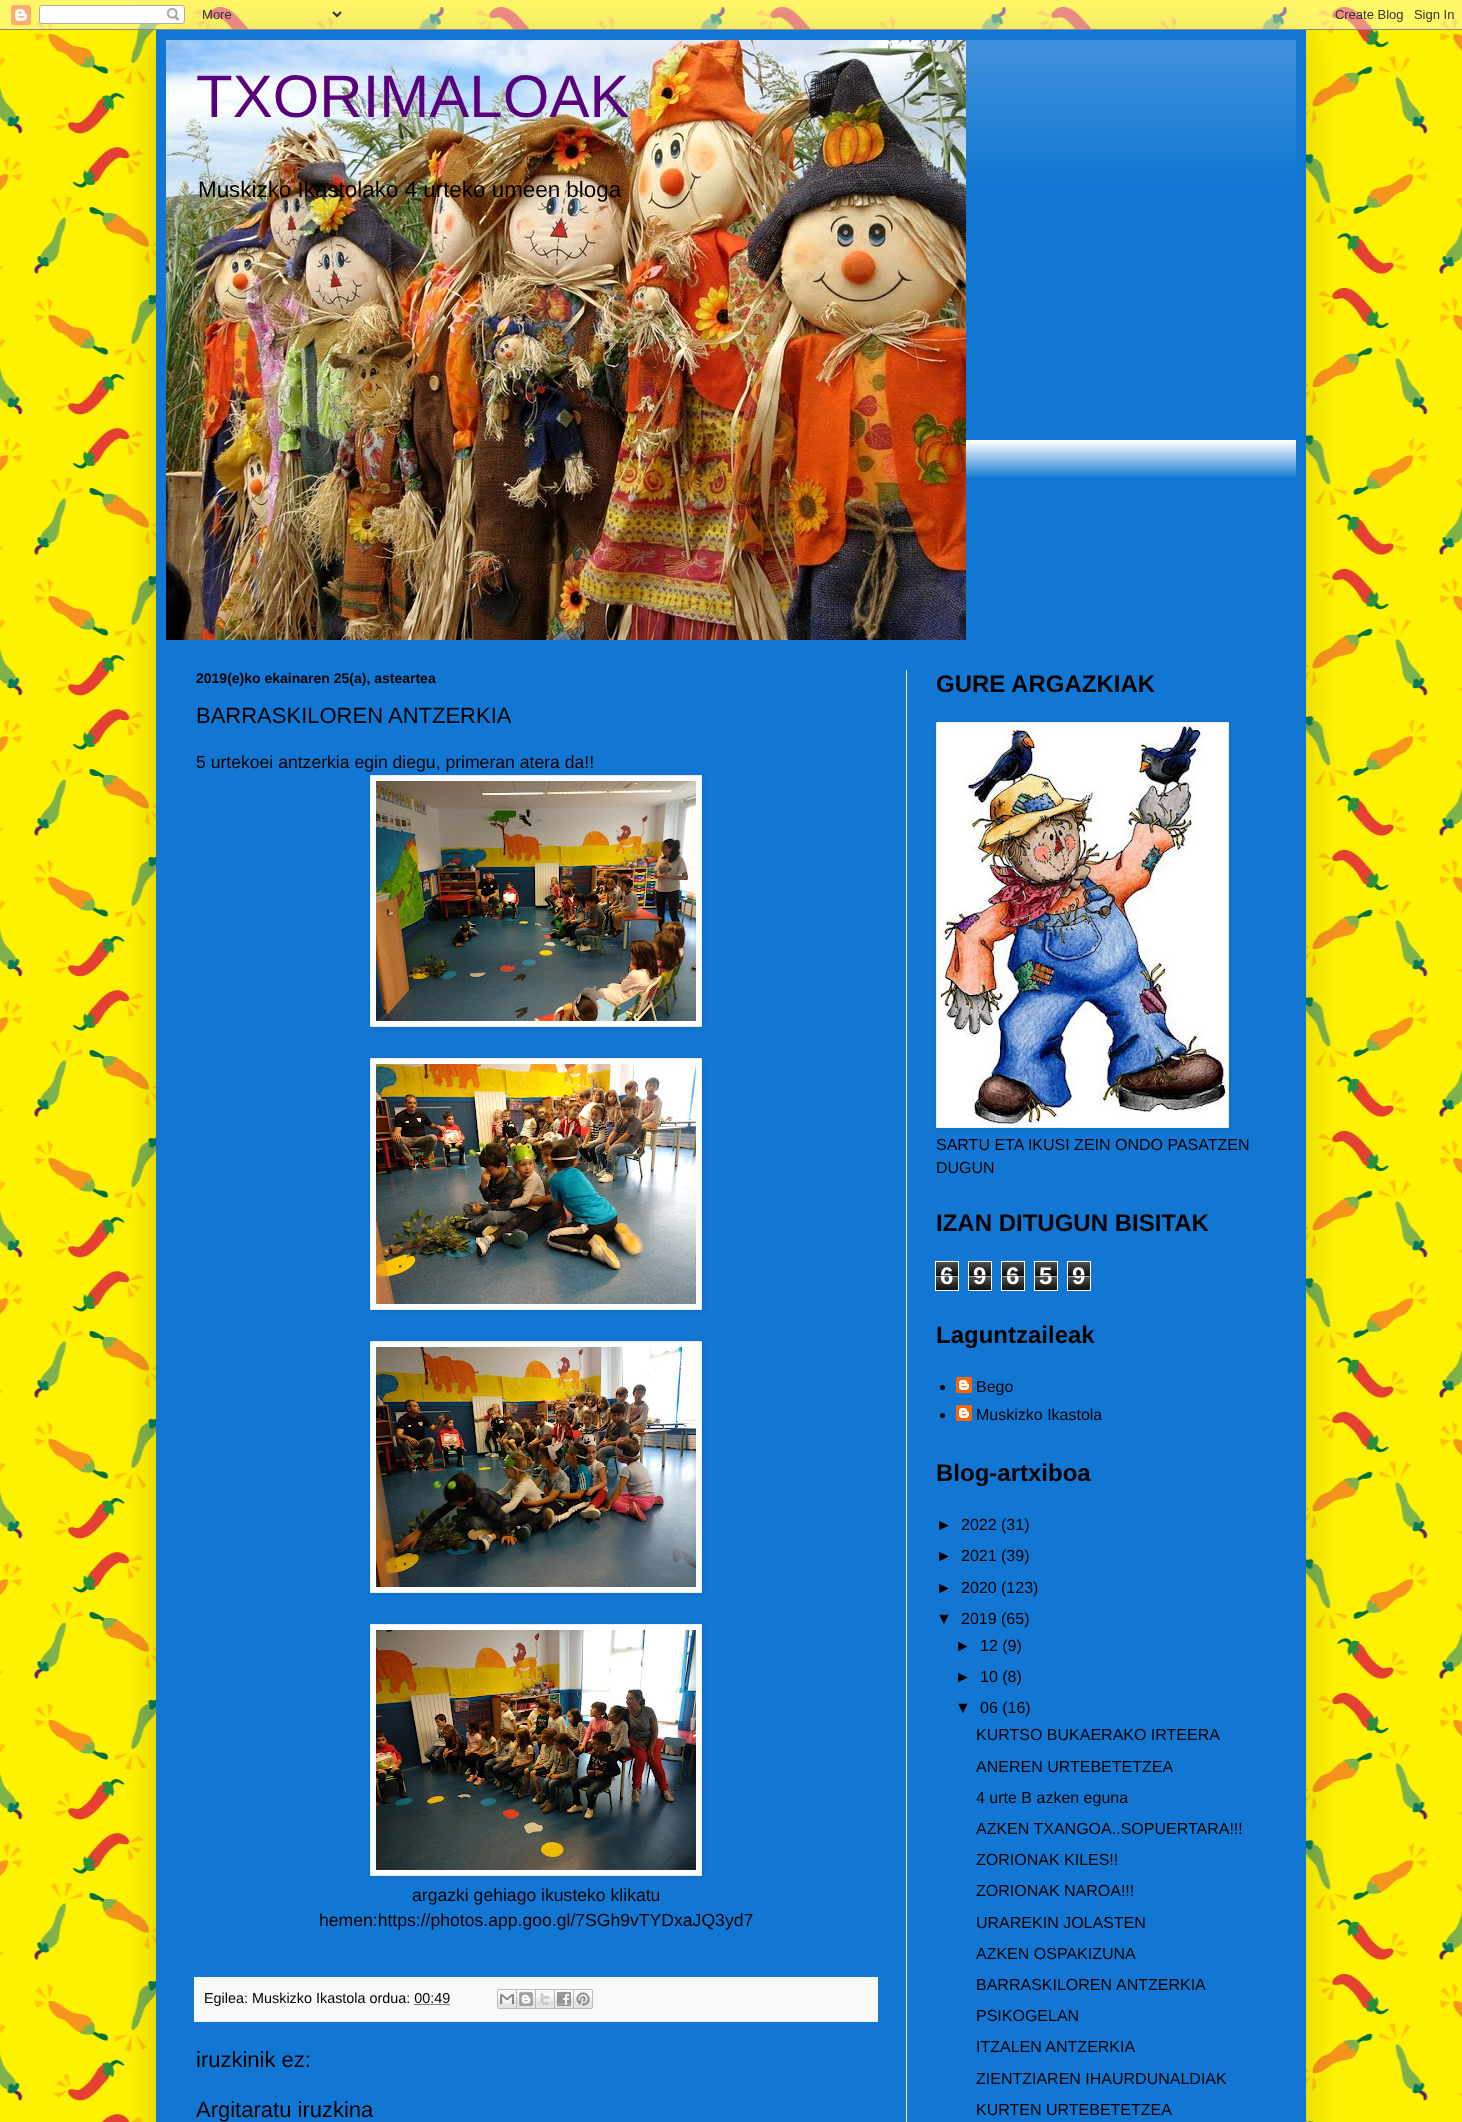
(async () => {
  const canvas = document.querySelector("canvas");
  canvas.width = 1462;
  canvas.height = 2122;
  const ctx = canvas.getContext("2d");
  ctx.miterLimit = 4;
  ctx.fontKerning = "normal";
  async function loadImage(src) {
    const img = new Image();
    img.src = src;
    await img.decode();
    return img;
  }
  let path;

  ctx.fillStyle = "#fff200";
  ctx.fillRect(0, 0, 1462, 2122);
  ctx.drawImage(await loadImage("img/1.png"), 0, 7, 1462, 2115);
  ctx.fillStyle = "rgba(0, 0, 0, 0.15)";
  ctx.filter = "blur(20px)";
  ctx.beginPath();
  ctx.rect(156, 30, 1150, 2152);
  ctx.fill();
  ctx.filter = "none";
  ctx.drawImage(await loadImage("img/2.png"), 0, 0, 1462, 30);
  ctx.fillStyle = "#1177d3";
  ctx.fillRect(156, 30, 1150, 2092);
  ctx.drawImage(await loadImage("img/3.png"), 966, 40, 330, 438);
  ctx.drawImage(await loadImage("img/4.png"), 166, 40, 800, 600);
  ctx.fillStyle = "#eeeeee";
  ctx.fillRect(906, 670, 1, 1452);
  ctx.fillStyle = "rgba(0, 0, 0, 0.1)";
  ctx.filter = "blur(2.5px)";
  ctx.beginPath();
  ctx.rect(371, 776, 332, 252);
  ctx.fill();
  ctx.filter = "none";
  ctx.fillStyle = "#ffffff";
  ctx.beginPath();
  ctx.rect(370.5, 775.5, 331, 251);
  ctx.fill();
  ctx.strokeStyle = "#eeeeee";
  ctx.stroke();
  ctx.drawImage(await loadImage("img/5.png"), 376, 781, 320, 240);
  ctx.fillStyle = "rgba(0, 0, 0, 0.1)";
  ctx.filter = "blur(2.5px)";
  ctx.beginPath();
  ctx.rect(371, 1059, 332, 252);
  ctx.fill();
  ctx.filter = "none";
  ctx.fillStyle = "#ffffff";
  ctx.beginPath();
  ctx.rect(370.5, 1058.5, 331, 251);
  ctx.fill();
  ctx.stroke();
  ctx.drawImage(await loadImage("img/6.png"), 376, 1064, 320, 240);
  ctx.fillStyle = "rgba(0, 0, 0, 0.1)";
  ctx.filter = "blur(2.5px)";
  ctx.beginPath();
  ctx.rect(371, 1342, 332, 252);
  ctx.fill();
  ctx.filter = "none";
  ctx.fillStyle = "#ffffff";
  ctx.beginPath();
  ctx.rect(370.5, 1341.5, 331, 251);
  ctx.fill();
  ctx.stroke();
  ctx.drawImage(await loadImage("img/7.png"), 376, 1347, 320, 240);
  ctx.fillStyle = "rgba(0, 0, 0, 0.1)";
  ctx.filter = "blur(2.5px)";
  ctx.beginPath();
  ctx.rect(371, 1625, 332, 252);
  ctx.fill();
  ctx.filter = "none";
  ctx.fillStyle = "#ffffff";
  ctx.beginPath();
  ctx.rect(370.5, 1624.5, 331, 251);
  ctx.fill();
  ctx.stroke();
  ctx.drawImage(await loadImage("img/8.png"), 376, 1630, 320, 240);
  ctx.fillStyle = "#f9f9f9";
  ctx.fillRect(194, 1977, 684, 44);
  ctx.fillStyle = "#eeeeee";
  ctx.fillRect(194, 2021, 684, 1);
  ctx.drawImage(await loadImage("img/9.png"), 497, 1989, 20, 20);
  ctx.drawImage(await loadImage("img/10.png"), 517, 1989, 19, 20);
  ctx.drawImage(await loadImage("img/11.png"), 536, 1989, 19, 20);
  ctx.drawImage(await loadImage("img/12.png"), 555, 1989, 19, 20);
  ctx.drawImage(await loadImage("img/13.png"), 574, 1989, 19, 20);
  path = new Path2D("M414.5 2004.5H450.5");
  ctx.strokeStyle = "#000000";
  ctx.setLineDash([1, 1]);
  ctx.stroke(path);
  ctx.fillStyle = "rgba(0, 0, 0, 0.1)";
  ctx.filter = "blur(2.5px)";
  ctx.beginPath();
  ctx.rect(937, 723, 293, 406);
  ctx.fill();
  ctx.filter = "none";
  ctx.fillStyle = "#ffffff";
  ctx.beginPath();
  ctx.rect(936.5, 722.5, 292, 405);
  ctx.fill();
  ctx.strokeStyle = "#eeeeee";
  ctx.setLineDash([]);
  ctx.stroke();
  ctx.drawImage(await loadImage("img/14.png"), 939, 725, 287, 400);
  ctx.drawImage(await loadImage("img/15.png"), 936, 1262, 22, 28);
  ctx.strokeStyle = "#ffffff";
  ctx.strokeRect(935.5, 1261.5, 23, 29);
  ctx.drawImage(await loadImage("img/15.png"), 969, 1262, 22, 28);
  ctx.strokeRect(968.5, 1261.5, 23, 29);
  ctx.drawImage(await loadImage("img/15.png"), 1002, 1262, 22, 28);
  ctx.strokeRect(1001.5, 1261.5, 23, 29);
  ctx.drawImage(await loadImage("img/15.png"), 1035, 1262, 22, 28);
  ctx.strokeRect(1034.5, 1261.5, 23, 29);
  ctx.drawImage(await loadImage("img/15.png"), 1068, 1262, 22, 28);
  ctx.strokeRect(1067.5, 1261.5, 23, 29);
  ctx.fillStyle = "#000000";
  ctx.beginPath();
  ctx.arc(942.5, 1387.5, 2.5, 0, Math.PI * 2);
  ctx.fill();
  ctx.drawImage(await loadImage("img/16.png"), 956, 1377, 16, 16);
  ctx.beginPath();
  ctx.arc(942.5, 1415.5, 2.5, 0, Math.PI * 2);
  ctx.fill();
  ctx.drawImage(await loadImage("img/16.png"), 956, 1405, 16, 16);
  ctx.font = "60px Liberation Sans";
  ctx.fillStyle = "#59007a";
  ctx.fillText("TXORIMALOAK", 196, 117);
  ctx.font = "22.4px Liberation Sans";
  ctx.fillStyle = "#000000";
  ctx.fillText("Muskizko Ikastolako 4 urteko umeen bloga", 198, 197);
  ctx.font = "bold 14px Liberation Sans";
  ctx.fillText("2019(e)ko ekainaren 25(a), asteartea", 196, 683);
  ctx.font = "22px Liberation Sans";
  ctx.fillText("BARRASKILOREN", 196, 723);
  ctx.fillText("ANTZERKIA", 388, 723);
  ctx.font = "17.6px Liberation Sans";
  for (const [text, x, y] of [
    ["5 urtekoei antzerkia egin diegu, primeran atera da!!", 196, 768],
    ["argazki gehiago ikusteko klikatu", 412, 1901],
    ["hemen:https://photos.app.goo.gl/7SGh9vTYDxaJQ3yd7", 319, 1926],
  ]) {
    ctx.fillText(text, x, y);
  }
  ctx.font = "14.4px Liberation Sans";
  ctx.fillText("Egilea: Muskizko Ikastola ordua: 00:49", 204, 2003);
  ctx.font = "22px Liberation Sans";
  ctx.fillText("iruzkinik ez:", 196, 2067);
  ctx.fillText("Argitaratu iruzkina", 196, 2117);
  ctx.font = "bold 24px Liberation Sans";
  ctx.fillText("GURE ARGAZKIAK", 936, 692);
  ctx.font = "16px Liberation Sans";
  ctx.fillText("SARTU ETA IKUSI ZEIN ONDO PASATZEN", 936, 1150);
  ctx.fillText("DUGUN", 936, 1173);
  ctx.font = "bold 24px Liberation Sans";
  ctx.fillText("IZAN DITUGUN BISITAK", 936, 1231);
  ctx.fillStyle = "#ffffff";
  ctx.fillText("6", 940, 1284);
  ctx.fillStyle = "rgba(0, 0, 0, 0.65)";
  ctx.fillRect(936, 1275, 22, 1);
  ctx.fillStyle = "rgba(255, 255, 255, 0.65)";
  ctx.fillRect(936, 1276, 22, 1);
  ctx.fillStyle = "#ffffff";
  ctx.fillText("9", 973, 1284);
  ctx.fillStyle = "rgba(0, 0, 0, 0.65)";
  ctx.fillRect(969, 1275, 22, 1);
  ctx.fillStyle = "rgba(255, 255, 255, 0.65)";
  ctx.fillRect(969, 1276, 22, 1);
  ctx.fillStyle = "#ffffff";
  ctx.fillText("6", 1006, 1284);
  ctx.fillStyle = "rgba(0, 0, 0, 0.65)";
  ctx.fillRect(1002, 1275, 22, 1);
  ctx.fillStyle = "rgba(255, 255, 255, 0.65)";
  ctx.fillRect(1002, 1276, 22, 1);
  ctx.fillStyle = "#ffffff";
  ctx.fillText("5", 1039, 1284);
  ctx.fillStyle = "rgba(0, 0, 0, 0.65)";
  ctx.fillRect(1035, 1275, 22, 1);
  ctx.fillStyle = "rgba(255, 255, 255, 0.65)";
  ctx.fillRect(1035, 1276, 22, 1);
  ctx.fillStyle = "#ffffff";
  ctx.fillText("9", 1072, 1284);
  ctx.fillStyle = "rgba(0, 0, 0, 0.65)";
  ctx.fillRect(1068, 1275, 22, 1);
  ctx.fillStyle = "rgba(255, 255, 255, 0.65)";
  ctx.fillRect(1068, 1276, 22, 1);
  ctx.fillStyle = "#000000";
  ctx.fillText("Laguntzaileak", 936, 1343);
  ctx.font = "16px Liberation Sans";
  ctx.fillText("Bego", 976, 1392);
  ctx.fillText("Muskizko Ikastola", 976, 1420);
  ctx.font = "bold 24px Liberation Sans";
  ctx.fillText("Blog-artxiboa", 936, 1481);
  ctx.font = "16px Liberation Sans";
  for (const [text, x, y] of [
    ["►", 936, 1530],
    ["2022 (31)", 961, 1530],
    ["►", 936, 1561],
    ["2021 (39)", 961, 1561],
    ["►", 936, 1593],
    ["2020 (123)", 961, 1593],
    ["▼", 936, 1624],
    ["2019 (65)", 961, 1624],
    ["►", 955, 1651],
    ["12 (9)", 980, 1651],
    ["►", 955, 1682],
    ["10 (8)", 980, 1682],
    ["▼", 955, 1713],
    ["06 (16)", 980, 1713],
    ["KURTSO BUKAERAKO IRTEERA", 976, 1740],
    ["ANEREN URTEBETETZEA", 976, 1772],
    ["4 urte B azken eguna", 976, 1803],
    ["AZKEN TXANGOA..SOPUERTARA!!!", 976, 1834],
    ["ZORIONAK KILES!!", 976, 1865],
    ["ZORIONAK NAROA!!!", 976, 1896],
    ["URAREKIN JOLASTEN", 976, 1928],
    ["AZKEN OSPAKIZUNA", 976, 1959],
    ["BARRASKILOREN", 976, 1990],
    ["ANTZERKIA", 1116, 1990],
    ["PSIKOGELAN", 976, 2021],
    ["ITZALEN ANTZERKIA", 976, 2052],
    ["ZIENTZIAREN IHAURDUNALDIAK", 976, 2084],
    ["KURTEN URTEBETETZEA", 976, 2115],
  ]) {
    ctx.fillText(text, x, y);
  }
})();
